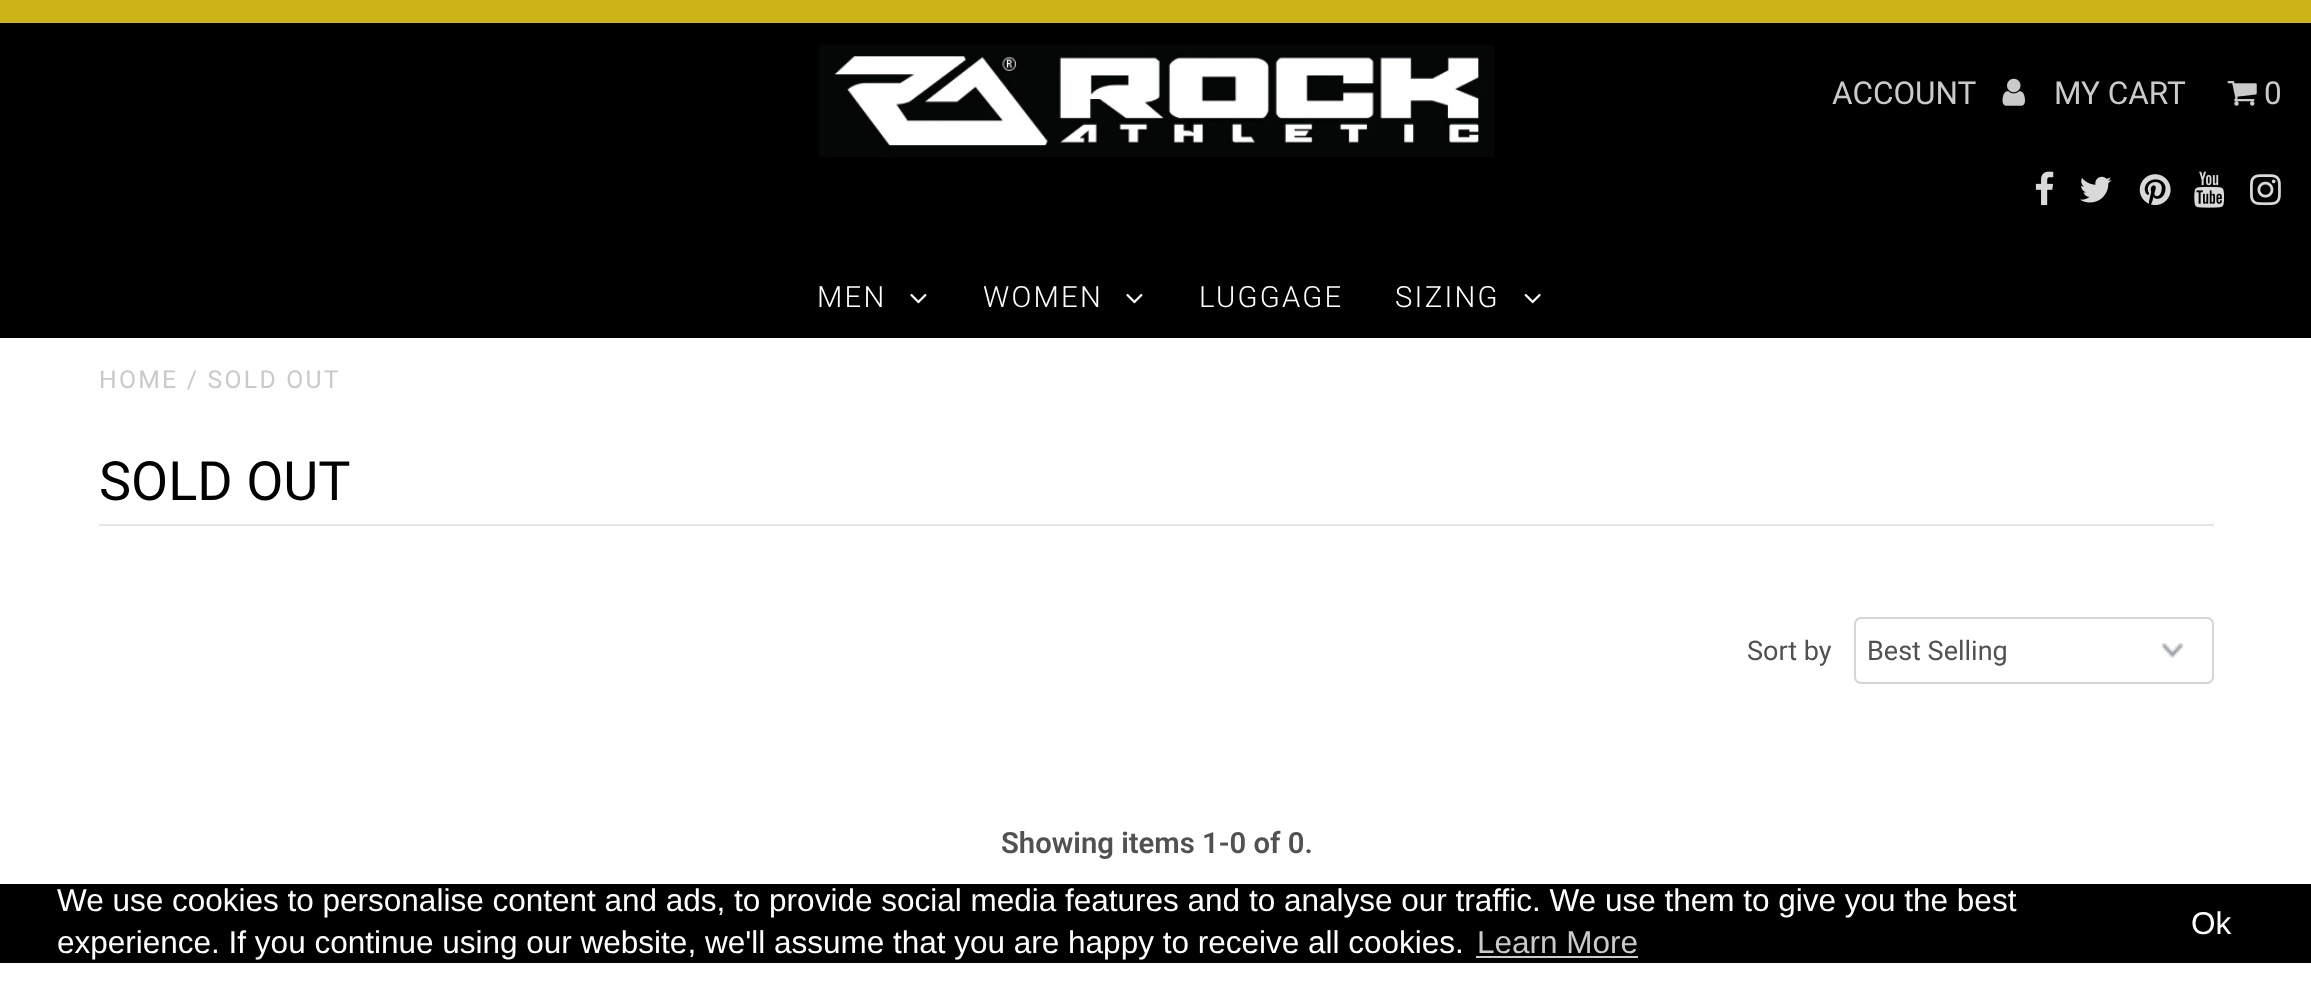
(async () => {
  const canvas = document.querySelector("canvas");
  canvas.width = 2311;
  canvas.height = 993;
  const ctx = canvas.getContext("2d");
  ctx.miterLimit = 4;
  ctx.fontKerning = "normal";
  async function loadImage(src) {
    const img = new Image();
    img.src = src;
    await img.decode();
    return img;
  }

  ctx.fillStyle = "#ffffff";
  ctx.fillRect(0, 0, 2311, 993);
  ctx.fillStyle = "#cdb416";
  ctx.fillRect(0, 0, 2311, 23);
  ctx.fillStyle = "#000000";
  ctx.fillRect(0, 23, 2311, 315);
  ctx.drawImage(await loadImage("img/1.png"), 819, 45, 675, 112);
  ctx.drawImage(await loadImage("img/2.png"), 2002, 78, 23, 28);
  ctx.drawImage(await loadImage("img/3.png"), 2227, 81, 30, 25);
  ctx.drawImage(await loadImage("img/4.png"), 2035, 171, 19, 35);
  ctx.drawImage(await loadImage("img/5.png"), 2080, 176, 32, 27);
  ctx.drawImage(await loadImage("img/6.png"), 2139, 174, 32, 32);
  ctx.drawImage(await loadImage("img/7.png"), 2194, 171, 31, 37);
  ctx.drawImage(await loadImage("img/8.png"), 2250, 174, 31, 32);
  ctx.drawImage(await loadImage("img/9.png"), 910, 293, 17, 11);
  ctx.drawImage(await loadImage("img/9.png"), 1126, 293, 17, 11);
  ctx.drawImage(await loadImage("img/10.png"), 1524, 293, 17, 11);
  ctx.fillStyle = "#e5e5e5";
  ctx.fillRect(99, 524, 2115, 2);
  ctx.drawImage(await loadImage("img/11.png"), 2161, 643, 23, 15);
  ctx.beginPath();
  ctx.roundRect(1855, 618, 358, 65, 6);
  ctx.strokeStyle = "#d5d5d5";
  ctx.lineWidth = 2;
  ctx.stroke();
  ctx.fillStyle = "#000000";
  ctx.fillRect(0, 884, 2311, 79);
  ctx.fillStyle = "#cccccc";
  ctx.fillRect(1476, 956, 162, 2);
  ctx.font = "31.5px Roboto";
  ctx.fillStyle = "#cacaca";
  for (const [text, x, y] of [
    ["ACCOUNT", 1832, 104],
    ["MY CART", 2054, 104],
    ["0", 2264, 104],
  ]) {
    ctx.fillText(text, x, y);
  }
  ctx.letterSpacing = "2.25px";
  ctx.font = "300 29.25px Roboto";
  ctx.fillStyle = "#ffffff";
  for (const [text, x, y] of [
    ["MEN", 817, 307],
    ["WOMEN", 983, 307],
    ["LUGGAGE", 1199, 307],
    ["SIZING", 1395, 307],
  ]) {
    ctx.fillText(text, x, y);
  }
  ctx.font = "24.75px Roboto";
  ctx.fillStyle = "#cacaca";
  ctx.fillText("HOME / SOLD OUT", 99, 388);
  ctx.letterSpacing = "0px";
  ctx.font = "54px Roboto";
  ctx.fillStyle = "#020000";
  ctx.fillText("SOLD OUT", 99, 500);
  ctx.font = "27px Roboto";
  ctx.fillStyle = "#515151";
  ctx.fillText("Sort by", 1747, 660);
  ctx.fillText("Best Selling", 1867, 660);
  ctx.font = "600 29.25px Roboto";
  ctx.fillText("Showing items 1-0 of 0.", 1001, 853);
  ctx.font = "31.5px Liberation Sans";
  ctx.fillStyle = "#ffffff";
  ctx.fillText("We use cookies to personalise content and ads, to provide social media features and to analyse our traffic. We use them to give you the best", 57, 911);
  ctx.fillText("experience. If you continue using our website, we'll assume that you are happy to receive all cookies.", 57, 953);
  ctx.fillStyle = "#cacaca";
  ctx.fillText("Learn More", 1477, 953);
  ctx.fillStyle = "#ffffff";
  ctx.fillText("Ok", 2191, 934);
})();
